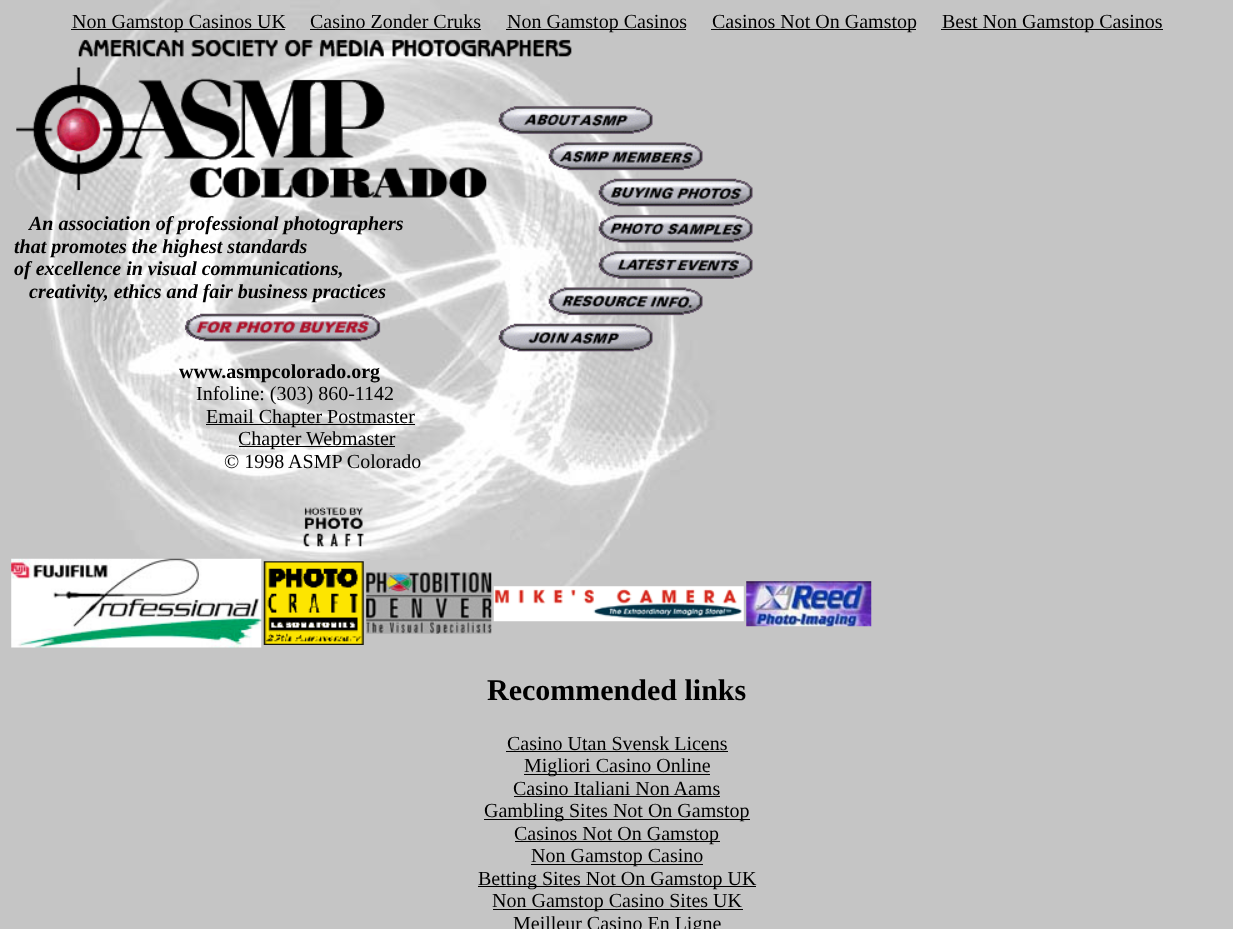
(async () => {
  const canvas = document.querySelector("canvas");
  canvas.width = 1233;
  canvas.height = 929;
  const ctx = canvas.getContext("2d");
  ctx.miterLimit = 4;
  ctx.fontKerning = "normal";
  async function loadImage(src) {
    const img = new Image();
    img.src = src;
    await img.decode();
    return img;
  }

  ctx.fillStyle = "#ffffff";
  ctx.fillRect(0, 0, 1233, 929);
  ctx.drawImage(await loadImage("img/1.png"), 0, 0, 1233, 929);
  for (const [x, y, w, h, color] of [
    [71, 29, 214, 1, "#000000"],
    [310, 29, 171, 1, "#000000"],
    [506, 29, 180, 1, "#000000"],
    [711, 29, 205, 1, "#000000"],
    [941, 29, 222, 1, "#000000"],
  ]) {
    ctx.fillStyle = color;
    ctx.fillRect(x, y, w, h);
  }
  ctx.drawImage(await loadImage("img/2.png"), 78, 39, 494, 18);
  ctx.drawImage(await loadImage("img/3.png"), 16, 67, 471, 131);
  ctx.drawImage(await loadImage("img/4.png"), 498, 106, 155, 28);
  ctx.drawImage(await loadImage("img/5.png"), 548, 142, 155, 29);
  ctx.drawImage(await loadImage("img/6.png"), 598, 178, 155, 29);
  ctx.drawImage(await loadImage("img/7.png"), 184, 313, 197, 29);
  ctx.drawImage(await loadImage("img/8.png"), 598, 214, 155, 29);
  ctx.drawImage(await loadImage("img/9.png"), 598, 251, 155, 28);
  ctx.drawImage(await loadImage("img/10.png"), 548, 287, 155, 29);
  ctx.drawImage(await loadImage("img/11.png"), 498, 323, 155, 29);
  ctx.fillRect(206, 424, 209, 1);
  ctx.fillRect(239, 446, 156, 1);
  ctx.drawImage(await loadImage("img/12.png"), 303, 507, 61, 40);
  ctx.drawImage(await loadImage("img/13.png"), 11, 558, 251, 90);
  ctx.drawImage(await loadImage("img/14.png"), 263, 561, 101, 84);
  ctx.drawImage(await loadImage("img/15.png"), 366, 572, 126, 62);
  ctx.drawImage(await loadImage("img/16.png"), 493, 586, 251, 36);
  ctx.drawImage(await loadImage("img/17.png"), 746, 581, 126, 46);
  for (const [x, y, w, h, color] of [
    [506, 751, 222, 1, "#000000"],
    [524, 774, 186, 1, "#000000"],
    [514, 796, 206, 1, "#000000"],
    [484, 819, 266, 1, "#000000"],
    [515, 841, 205, 1, "#000000"],
    [531, 864, 172, 1, "#000000"],
    [478, 886, 278, 1, "#000000"],
    [493, 909, 250, 1, "#000000"],
  ]) {
    ctx.fillStyle = color;
    ctx.fillRect(x, y, w, h);
  }
  ctx.font = "20px Liberation Serif";
  for (const [text, x, y] of [
    ["Non Gamstop Casinos UK", 72, 28],
    ["Casino Zonder Cruks", 310, 28],
    ["Non Gamstop Casinos", 507, 28],
    ["Casinos Not On Gamstop", 712, 28],
    ["Best Non Gamstop Casinos", 942, 28],
  ]) {
    ctx.fillText(text, x, y);
  }
  ctx.font = "italic bold 20px Liberation Serif";
  for (const [text, x, y] of [
    ["An association of professional photographers", 29, 230],
    ["that promotes the highest standards", 14, 253],
    ["of excellence in visual communications,", 14, 275],
    ["creativity, ethics and fair business practices", 29, 298],
  ]) {
    ctx.fillText(text, x, y);
  }
  ctx.font = "bold 20px Liberation Serif";
  ctx.fillText("www.asmpcolorado.org", 179, 378);
  ctx.font = "20px Liberation Serif";
  for (const [text, x, y] of [
    ["Infoline: (303) 860-1142", 196, 400],
    ["Email Chapter Postmaster", 206, 423],
    ["Chapter Webmaster", 238, 445],
    ["© 1998 ASMP Colorado", 224, 468],
  ]) {
    ctx.fillText(text, x, y);
  }
  ctx.font = "bold 30px Liberation Serif";
  ctx.fillText("Recommended links", 487, 700);
  ctx.font = "20px Liberation Serif";
  for (const [text, x, y] of [
    ["Casino Utan Svensk Licens", 507, 750],
    ["Migliori Casino Online", 524, 772],
    ["Casino Italiani Non Aams", 513, 795],
    ["Gambling Sites Not On Gamstop", 484, 817],
    ["Casinos Not On Gamstop", 514, 840],
    ["Non Gamstop Casino", 531, 862],
    ["Betting Sites Not On Gamstop UK", 478, 885],
    ["Non Gamstop Casino Sites UK", 492, 907],
    ["Meilleur Casino En Ligne", 513, 930],
  ]) {
    ctx.fillText(text, x, y);
  }
})();
